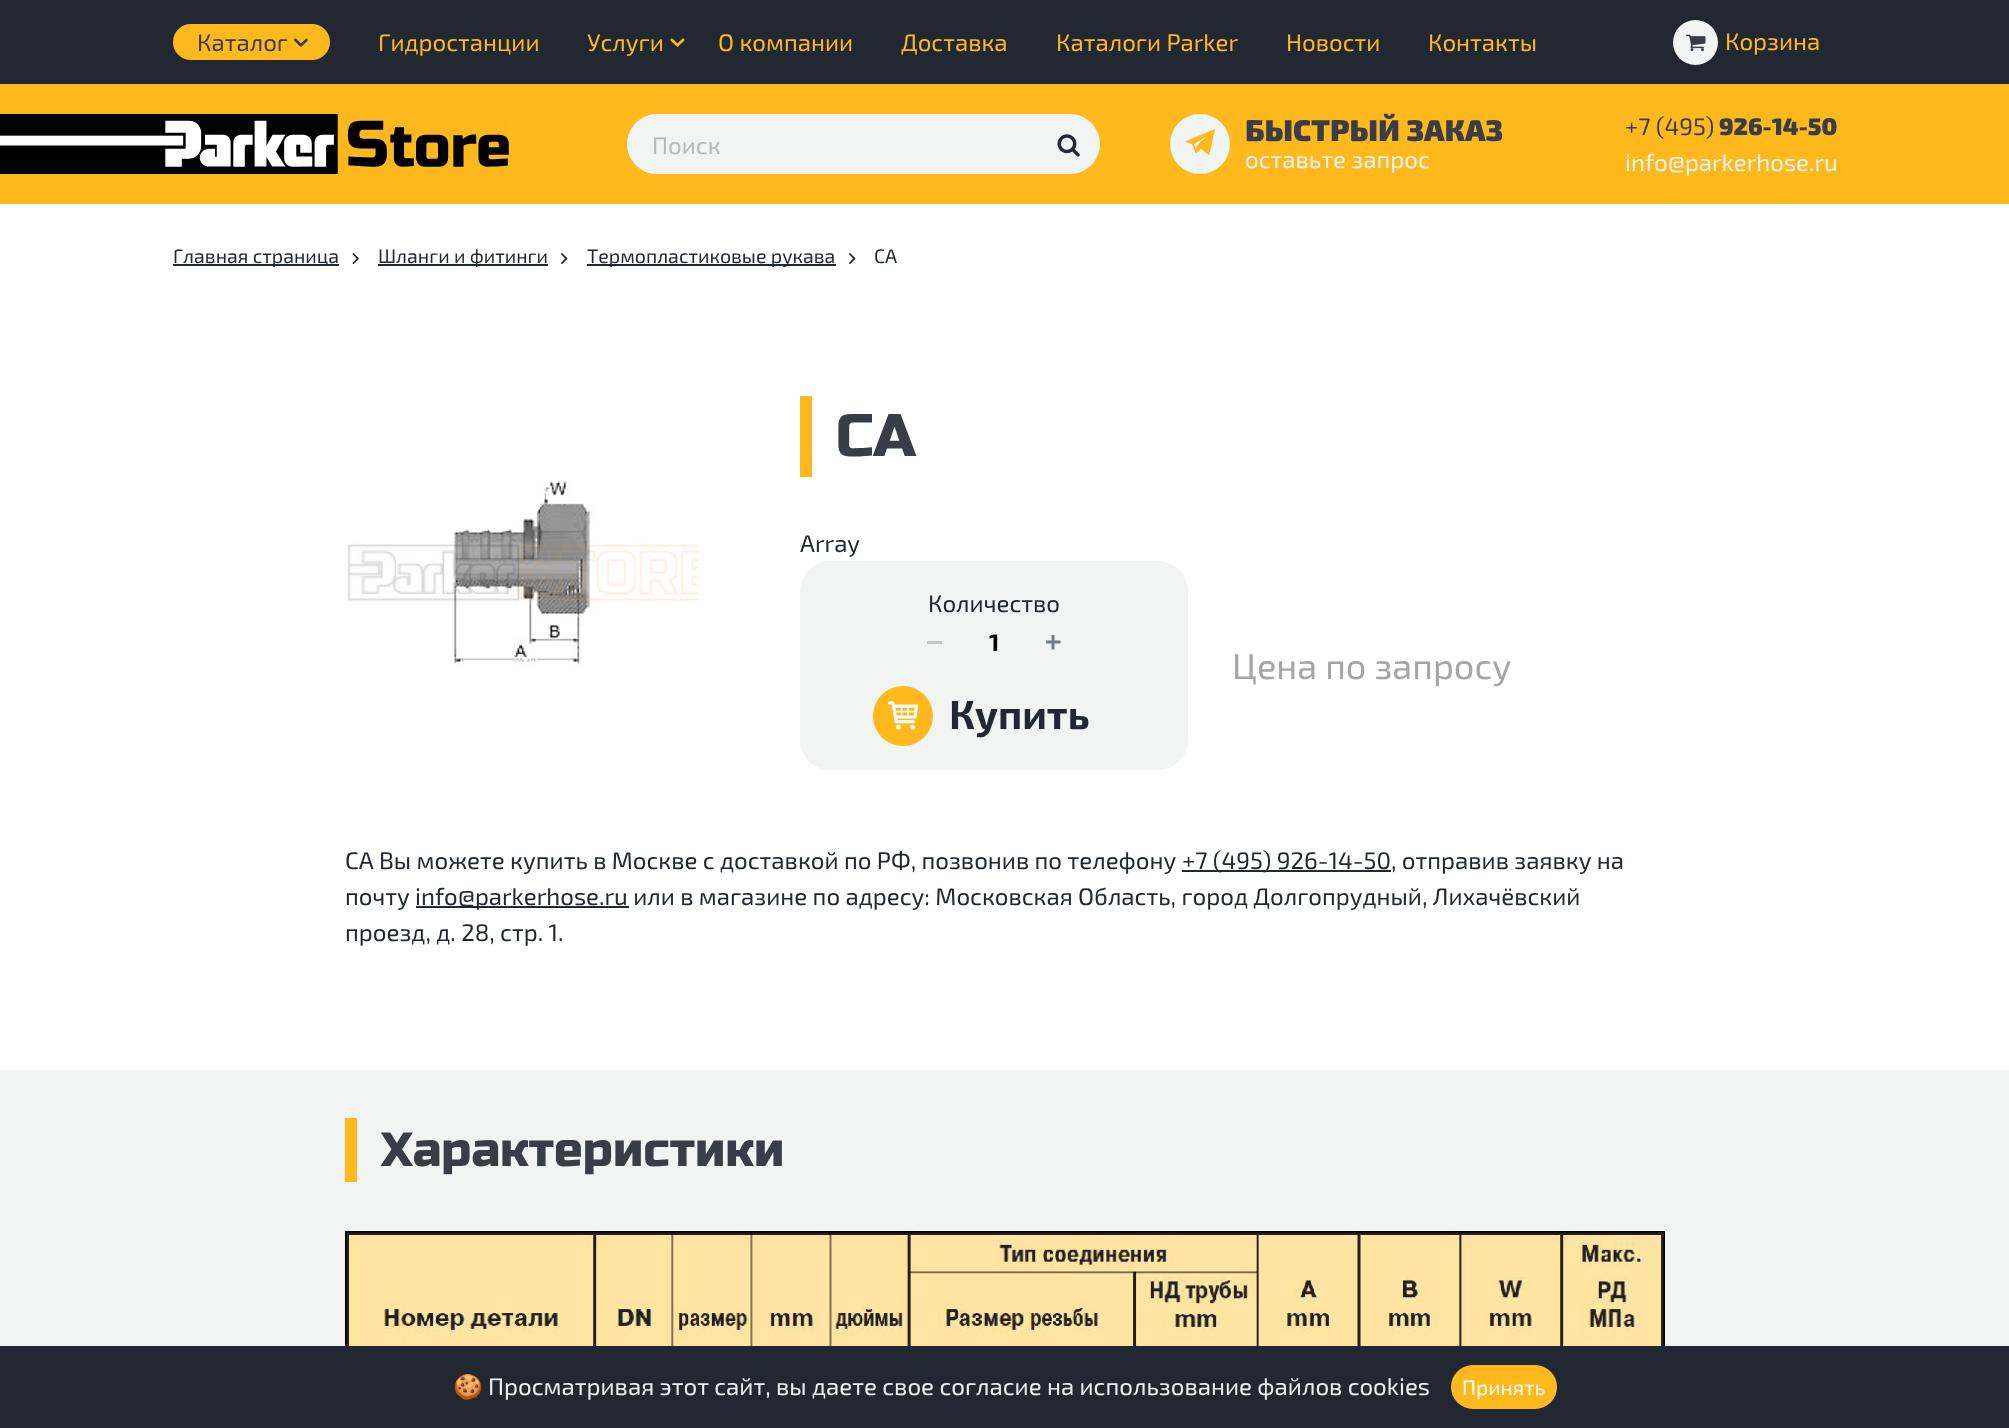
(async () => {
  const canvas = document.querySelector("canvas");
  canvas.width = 2009;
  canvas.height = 1428;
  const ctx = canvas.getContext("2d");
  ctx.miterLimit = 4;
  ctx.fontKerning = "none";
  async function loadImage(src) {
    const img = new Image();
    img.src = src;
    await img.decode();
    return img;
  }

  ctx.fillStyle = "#ffffff";
  ctx.fillRect(0, 0, 2009, 1428);
  ctx.fillStyle = "#222831";
  ctx.fillRect(0, 0, 2009, 84);
  ctx.fillStyle = "#ffb91d";
  ctx.beginPath();
  ctx.roundRect(173, 24, 157, 36, 18);
  ctx.fill();
  ctx.drawImage(await loadImage("img/1.png"), 294, 38, 14, 9);
  ctx.drawImage(await loadImage("img/2.png"), 670, 38, 15, 9);
  ctx.fillStyle = "#f2f3f3";
  ctx.beginPath();
  ctx.arc(1695.5, 42.5, 22.5, 0, Math.PI * 2);
  ctx.fill();
  ctx.drawImage(await loadImage("img/3.png"), 1686, 34, 20, 18);
  ctx.fillStyle = "#ffb91d";
  ctx.fillRect(0, 84, 2009, 120);
  ctx.drawImage(await loadImage("img/4.png"), 0, 114, 150, 60);
  ctx.drawImage(await loadImage("img/5.png"), 150, 114, 359, 60);
  ctx.fillStyle = "#f2f3f3";
  ctx.beginPath();
  ctx.roundRect(628, 115, 411, 58, [29, 0, 0, 29]);
  ctx.fill();
  ctx.strokeStyle = "#f2f3f3";
  ctx.lineWidth = 2;
  ctx.stroke();
  ctx.beginPath();
  ctx.roundRect(1040, 114, 60, 60, [0, 30, 30, 0]);
  ctx.fill();
  ctx.drawImage(await loadImage("img/6.png"), 1057, 134, 23, 23);
  ctx.beginPath();
  ctx.arc(1200, 144, 30, 0, Math.PI * 2);
  ctx.fill();
  ctx.drawImage(await loadImage("img/7.png"), 1185, 129, 30, 27);
  ctx.fillStyle = "#222831";
  ctx.fillRect(173, 264, 166, 2);
  ctx.drawImage(await loadImage("img/8.png"), 352, 253, 7, 12);
  ctx.fillRect(378, 264, 170, 2);
  ctx.drawImage(await loadImage("img/9.png"), 561, 253, 7, 12);
  ctx.fillRect(587, 264, 249, 2);
  ctx.drawImage(await loadImage("img/9.png"), 849, 253, 7, 12);
  ctx.drawImage(await loadImage("img/10.png"), 347, 481, 352, 188);
  ctx.fillStyle = "#ffb91d";
  ctx.fillRect(800, 396, 12, 81);
  ctx.fillStyle = "#f2f3f3";
  ctx.beginPath();
  ctx.roundRect(800, 561, 388, 209, 30);
  ctx.fill();
  ctx.fillStyle = "#c2c6c9";
  ctx.fillRect(927, 641, 15, 3);
  ctx.drawImage(await loadImage("img/11.png"), 1046, 635, 15, 15);
  ctx.fillStyle = "#ffb91d";
  ctx.beginPath();
  ctx.arc(903, 716, 30, 0, Math.PI * 2);
  ctx.fill();
  ctx.drawImage(await loadImage("img/12.png"), 888, 701, 31, 29);
  for (const [x, y, w, h, color] of [
    [1182, 870, 209, 2, "#222831"],
    [416, 906, 213, 2, "#222831"],
    [0, 1070, 2009, 276, "#f2f3f3"],
    [345, 1118, 12, 64, "#ffb91d"],
  ]) {
    ctx.fillStyle = color;
    ctx.fillRect(x, y, w, h);
  }
  ctx.drawImage(await loadImage("img/13.png"), 345, 1230, 1320, 116);
  ctx.fillStyle = "#222831";
  ctx.fillRect(0, 1346, 2009, 82);
  ctx.fillStyle = "#ffb91d";
  ctx.beginPath();
  ctx.roundRect(1451, 1365, 106, 44, 22);
  ctx.fill();
  ctx.font = "24px 'Exo 2'";
  ctx.fillStyle = "#393e46";
  ctx.fillText("Каталог", 197, 51);
  ctx.fillStyle = "#ffb91d";
  for (const [text, x, y] of [
    ["Гидростанции", 378, 51],
    ["Услуги", 587, 51],
    ["О компании", 718, 51],
    ["Доставка", 901, 51],
    ["Каталоги Parker", 1056, 51],
    ["Новости", 1286, 51],
    ["Контакты", 1428, 51],
    ["Корзина", 1725, 50],
  ]) {
    ctx.fillText(text, x, y);
  }
  ctx.fillStyle = "#b8b9b9";
  ctx.fillText("Поиск", 652, 154);
  ctx.font = "900 30px 'Exo 2'";
  ctx.fillStyle = "#393e46";
  ctx.fillText("БЫСТРЫЙ ЗАКАЗ", 1245, 141);
  ctx.font = "24px 'Exo 2'";
  ctx.fillStyle = "#f2f3f3";
  ctx.fillText("оставьте запрос", 1245, 168);
  ctx.fillStyle = "#393e46";
  ctx.fillText("+7 (495)", 1625, 135);
  ctx.font = "900 24px 'Exo 2'";
  ctx.fillText("926-14-50", 1719, 135);
  ctx.font = "24px 'Exo 2'";
  ctx.fillStyle = "#f2f3f3";
  ctx.fillText("info@parkerhose.ru", 1625, 171);
  ctx.font = "19.5px 'Exo 2'";
  ctx.fillStyle = "#222831";
  for (const [text, x, y] of [
    ["Главная страница", 173, 263],
    ["Шланги и фитинги", 378, 263],
    ["Термопластиковые рукава", 587, 263],
    ["CA", 874, 263],
  ]) {
    ctx.fillText(text, x, y);
  }
  ctx.font = "60px Russo One";
  ctx.fillStyle = "#393e46";
  ctx.fillText("CA", 836, 456);
  ctx.font = "24px 'Exo 2'";
  ctx.fillStyle = "#222831";
  ctx.fillText("Array", 800, 552);
  ctx.fillText("Количество", 928, 612);
  ctx.font = "bold 24px 'Exo 2'";
  ctx.fillStyle = "#000000";
  ctx.fillText("1", 989, 651);
  ctx.font = "bold 40.5px 'Exo 2'";
  ctx.fillStyle = "#222831";
  ctx.fillText("Купить", 949, 729);
  ctx.font = "36px 'Exo 2'";
  ctx.fillStyle = "#a5a5a5";
  ctx.fillText("Цена по запросу", 1232, 679);
  ctx.font = "24px 'Exo 2'";
  ctx.fillStyle = "#222831";
  for (const [text, x, y] of [
    ["CA Вы можете купить в Москве с доставкой по РФ, позвонив по телефону", 345, 869],
    ["+7 (495) 926-14-50, отправив заявку на", 1182, 869],
    ["почту", 345, 905],
    ["info@parkerhose.ru или в магазине по адресу: Московская Область, город Долгопрудный, Лихачёвский", 415, 905],
    ["проезд, д. 28, стр. 1.", 345, 941],
  ]) {
    ctx.fillText(text, x, y);
  }
  ctx.font = "48px Russo One";
  ctx.fillStyle = "#393e46";
  ctx.fillText("Характеристики", 381, 1166);
  ctx.font = "24px Noto Color Emoji";
  ctx.fillStyle = "#ecf0f1";
  ctx.fillText("🍪", 453, 1395);
  ctx.font = "24px 'Exo 2'";
  ctx.fillText("Просматривая этот сайт, вы даете свое согласие на использование файлов cookies", 488, 1395);
  ctx.font = "21px 'Exo 2'";
  ctx.fillStyle = "#ffffff";
  ctx.fillText("Принять", 1462, 1395);
})();
